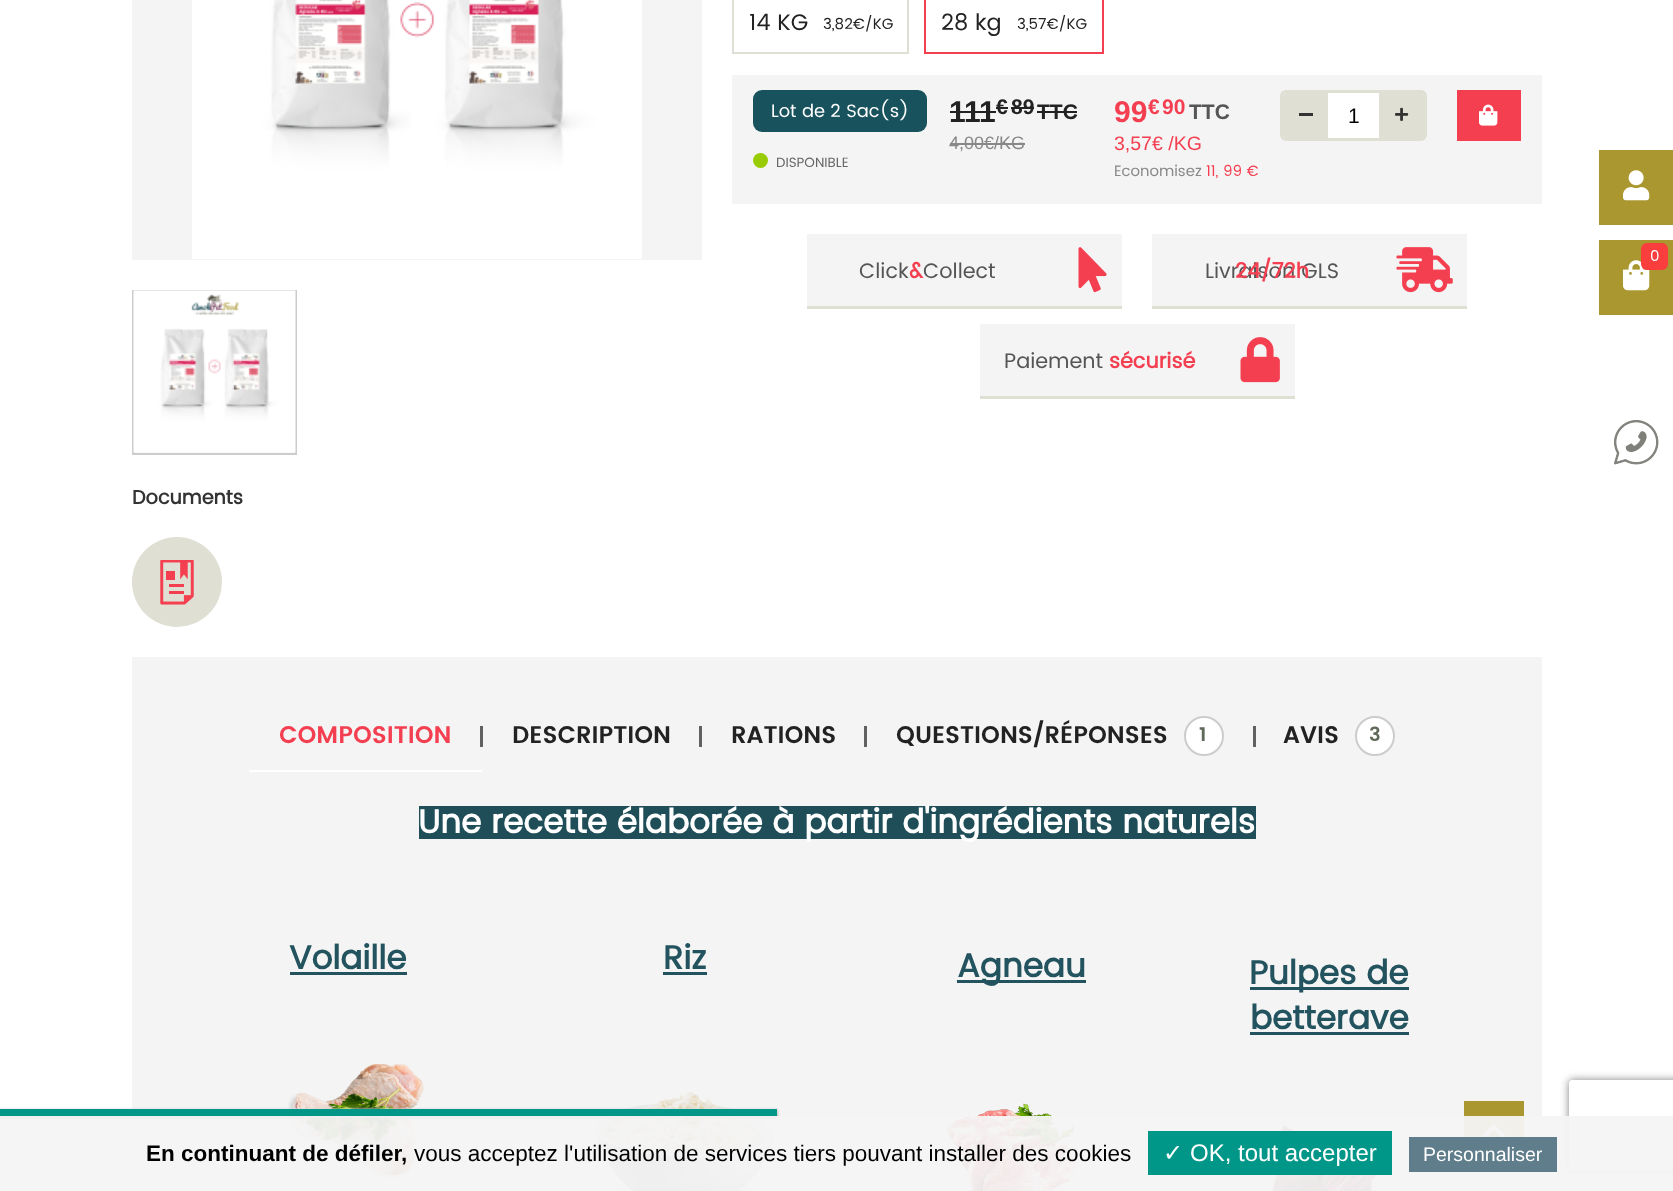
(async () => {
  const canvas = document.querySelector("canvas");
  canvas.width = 1673;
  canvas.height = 1191;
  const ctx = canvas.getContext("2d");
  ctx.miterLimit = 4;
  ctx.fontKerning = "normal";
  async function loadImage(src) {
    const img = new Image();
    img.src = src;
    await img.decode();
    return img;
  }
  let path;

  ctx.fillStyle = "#ffffff";
  ctx.fillRect(0, 0, 1673, 1191);
  ctx.strokeStyle = "#dfdfd5";
  ctx.lineWidth = 2;
  ctx.strokeRect(733, -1, 175, 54);
  ctx.strokeStyle = "#f43f51";
  ctx.strokeRect(925, -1, 178, 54);
  ctx.fillStyle = "#f4f4f4";
  ctx.fillRect(732, 75, 810, 129);
  ctx.fillStyle = "#17525d";
  ctx.beginPath();
  ctx.roundRect(753, 90, 174, 42, 9);
  ctx.fill();
  ctx.fillStyle = "#99cc00";
  ctx.beginPath();
  ctx.arc(760.5, 160.5, 7.5, 0, Math.PI * 2);
  ctx.fill();
  for (const [x, y, w, h, color] of [
    [950, 111, 46, 2, "#222222"],
    [996, 107, 12, 2, "#222222"],
    [1011, 107, 23, 2, "#222222"],
    [1037, 111, 40, 2, "#222222"],
    [950, 143, 75, 2, "#888888"],
  ]) {
    ctx.fillStyle = color;
    ctx.fillRect(x, y, w, h);
  }
  ctx.beginPath();
  ctx.roundRect(1281.5, 91.5, 144, 48, 4.5);
  ctx.strokeStyle = "#dfdfd4";
  ctx.lineWidth = 3;
  ctx.stroke();
  ctx.fillStyle = "#dfdfd4";
  ctx.beginPath();
  ctx.roundRect(1283, 93, 45, 45, [3, 0, 0, 3]);
  ctx.fill();
  ctx.fillStyle = "#333333";
  ctx.fillRect(1299, 113, 14, 3);
  ctx.fillStyle = "#ffffff";
  ctx.fillRect(1328, 93, 51, 45);
  ctx.fillStyle = "#dfdfd4";
  ctx.beginPath();
  ctx.roundRect(1379, 93, 45, 45, [0, 3, 3, 0]);
  ctx.fill();
  ctx.drawImage(await loadImage("img/1.png"), 1395, 107, 14, 14);
  ctx.fillStyle = "#f43f51";
  ctx.fillRect(1457, 90, 64, 51);
  ctx.drawImage(await loadImage("img/2.png"), 1479, 104, 19, 22);
  ctx.fillStyle = "#f4f4f4";
  ctx.fillRect(807, 234, 315, 72);
  ctx.fillStyle = "#dfdfd4";
  ctx.fillRect(807, 306, 315, 3);
  ctx.drawImage(await loadImage("img/3.png"), 1078, 247, 29, 46);
  ctx.fillStyle = "#f4f4f4";
  ctx.fillRect(1152, 234, 315, 72);
  ctx.fillStyle = "#dfdfd4";
  ctx.fillRect(1152, 306, 315, 3);
  ctx.drawImage(await loadImage("img/4.png"), 1396, 247, 57, 46);
  ctx.fillStyle = "#f4f4f4";
  ctx.fillRect(980, 324, 315, 72);
  ctx.fillStyle = "#dfdfd4";
  ctx.fillRect(980, 396, 315, 3);
  ctx.drawImage(await loadImage("img/5.png"), 1240, 337, 40, 46);
  ctx.fillStyle = "#f4f4f4";
  ctx.fillRect(132, 0, 570, 260);
  ctx.drawImage(await loadImage("img/6.png"), 192, 0, 450, 259);
  ctx.fillRect(134, 452, 161, 1);
  ctx.strokeStyle = "#cccccc";
  ctx.lineWidth = 2;
  ctx.strokeRect(133, 291, 163, 163);
  ctx.drawImage(await loadImage("img/7.png"), 133, 290, 163, 163);
  ctx.fillStyle = "#dfdfd4";
  ctx.beginPath();
  ctx.arc(177, 582, 45, 0, Math.PI * 2);
  ctx.fill();
  ctx.drawImage(await loadImage("img/8.png"), 160, 560, 34, 45);
  for (const [x, y, w, h, color] of [
    [132, 657, 1410, 534, "#f4f4f4"],
    [249, 770, 233, 2, "#ffffff"],
    [480, 726, 3, 21, "#616161"],
    [699, 726, 3, 21, "#616161"],
    [864, 726, 3, 21, "#616161"],
  ]) {
    ctx.fillStyle = color;
    ctx.fillRect(x, y, w, h);
  }
  ctx.fillStyle = "#ffffff";
  ctx.beginPath();
  ctx.arc(1204, 736, 19, 0, Math.PI * 2);
  ctx.fill();
  ctx.stroke();
  ctx.fillStyle = "#616161";
  ctx.fillRect(1253, 726, 3, 21);
  ctx.fillStyle = "#ffffff";
  ctx.beginPath();
  ctx.arc(1375, 736, 19, 0, Math.PI * 2);
  ctx.fill();
  ctx.stroke();
  ctx.fillStyle = "#1f4e59";
  ctx.fillRect(419, 806, 837, 33);
  ctx.fillStyle = "#22535e";
  ctx.fillRect(290, 972, 117, 3);
  ctx.drawImage(await loadImage("img/9.png"), 288, 1064, 136, 115);
  ctx.fillRect(663, 972, 44, 3);
  ctx.drawImage(await loadImage("img/10.png"), 595, 1092, 180, 99);
  ctx.fillRect(957, 980, 129, 3);
  ctx.drawImage(await loadImage("img/11.png"), 947, 1103, 130, 88);
  ctx.fillRect(1250, 987, 159, 3);
  ctx.fillRect(1250, 1032, 159, 3);
  ctx.drawImage(await loadImage("img/12.png"), 1273, 1125, 104, 66);
  ctx.fillStyle = "#aa9730";
  ctx.fillRect(1599, 150, 74, 75);
  ctx.drawImage(await loadImage("img/13.png"), 1623, 170, 27, 31);
  ctx.fillRect(1599, 240, 74, 75);
  ctx.drawImage(await loadImage("img/14.png"), 1623, 260, 27, 31);
  ctx.fillStyle = "#fa3e3e";
  ctx.beginPath();
  ctx.roundRect(1641, 243, 27, 27, 6);
  ctx.fill();
  ctx.drawImage(await loadImage("img/15.png"), 1614, 420, 45, 45);
  ctx.fillStyle = "#aa9730";
  ctx.fillRect(1464, 1101, 60, 36);
  ctx.drawImage(await loadImage("img/16.png"), 1482, 1124, 24, 13);
  ctx.save();
  path = new Path2D("M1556 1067H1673V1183H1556ZM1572 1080H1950C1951.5 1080 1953 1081.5 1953 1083V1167C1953 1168.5 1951.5 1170 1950 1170H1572C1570.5 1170 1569 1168.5 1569 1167V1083C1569 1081.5 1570.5 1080 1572 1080Z");
  ctx.clip(path, "evenodd");
  ctx.fillStyle = "#808080";
  ctx.filter = "blur(4px)";
  ctx.beginPath();
  ctx.roundRect(1569, 1080, 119, 90, 3);
  ctx.fill();
  ctx.filter = "none";
  ctx.restore();
  ctx.fillStyle = "#555555";
  ctx.filter = "blur(1.5px)";
  ctx.beginPath();
  ctx.rect(0, 1110, 777, 8);
  ctx.fill();
  ctx.filter = "none";
  ctx.fillStyle = "#ffffff";
  ctx.filter = "blur(1.5px)";
  ctx.beginPath();
  ctx.rect(0, 1109, 777, 7);
  ctx.fill();
  ctx.filter = "none";
  for (const [x, y, w, h, color] of [
    [0, 1109, 777, 7, "#009688"],
    [0, 1116, 1673, 75, "rgba(244, 244, 244, 0.95)"],
    [1148, 1131, 244, 44, "#009688"],
    [1409, 1137, 148, 35, "#607d8b"],
  ]) {
    ctx.fillStyle = color;
    ctx.fillRect(x, y, w, h);
  }
  ctx.font = "22.5px Poppins";
  ctx.fillStyle = "#222222";
  ctx.fillText("14 KG", 749, 30);
  ctx.font = "15px Poppins";
  ctx.fillText("3,82€/KG", 823, 29);
  ctx.font = "22.5px Poppins";
  ctx.fillText("28 kg", 941, 30);
  ctx.font = "15px Poppins";
  ctx.fillText("3,57€/KG", 1017, 29);
  ctx.font = "18px Poppins";
  ctx.fillStyle = "#ffffff";
  ctx.fillText("Lot de 2 Sac(s)", 771, 117);
  ctx.font = "13.5px Poppins";
  ctx.fillStyle = "#676767";
  ctx.fillText("DISPONIBLE", 776, 167);
  ctx.font = "bold 30px Liberation Sans";
  ctx.fillStyle = "#222222";
  ctx.fillText("111", 949, 122);
  ctx.font = "bold 21px Liberation Sans";
  for (const [text, x, y] of [
    ["€", 996, 114],
    ["89", 1011, 114],
    ["TTC", 1037, 119],
  ]) {
    ctx.fillText(text, x, y);
  }
  ctx.font = "18px Liberation Sans";
  ctx.fillStyle = "#888888";
  ctx.fillText("4,00€/KG", 949, 149);
  ctx.font = "bold 30px Liberation Sans";
  ctx.fillStyle = "#f43f51";
  ctx.fillText("99", 1114, 122);
  ctx.font = "bold 21px Liberation Sans";
  ctx.fillText("€", 1148, 114);
  ctx.fillText("90", 1162, 114);
  ctx.fillStyle = "#555555";
  ctx.fillText("TTC", 1189, 119);
  ctx.font = "19.5px Liberation Sans";
  ctx.fillStyle = "#f43f51";
  ctx.fillText("3,57€ /KG", 1114, 150);
  ctx.font = "15px Poppins";
  ctx.fillStyle = "#888888";
  ctx.fillText("Economisez", 1114, 176);
  ctx.fillStyle = "#f43f51";
  ctx.fillText("11, 99 €", 1206, 176);
  ctx.font = "21px Liberation Sans";
  ctx.fillStyle = "#000000";
  ctx.fillText("1", 1348, 123);
  ctx.font = "21px Poppins";
  ctx.fillStyle = "#555555";
  ctx.fillText("Click", 859, 278);
  ctx.font = "bold 21px Poppins";
  ctx.fillStyle = "#f43f51";
  ctx.fillText("&", 909, 278);
  ctx.font = "21px Poppins";
  ctx.fillStyle = "#555555";
  ctx.fillText("Collect", 923, 278);
  ctx.fillText("Livraison GLS", 1205, 278);
  ctx.font = "bold 21px Poppins";
  ctx.fillStyle = "#f43f51";
  ctx.fillText("24/72h", 1235, 278);
  ctx.font = "21px Poppins";
  ctx.fillStyle = "#555555";
  ctx.fillText("Paiement", 1004, 368);
  ctx.font = "bold 21px Poppins";
  ctx.fillStyle = "#f43f51";
  ctx.fillText("sécurisé", 1109, 368);
  ctx.font = "bold 19.5px Poppins";
  ctx.fillStyle = "#333333";
  ctx.fillText("Documents", 132, 504);
  ctx.font = "600 24px Poppins";
  ctx.fillStyle = "#f43f51";
  ctx.fillText("COMPOSITION", 279, 743);
  ctx.fillStyle = "#222222";
  for (const [text, x, y] of [
    ["DESCRIPTION", 512, 743],
    ["RATIONS", 731, 743],
    ["QUESTIONS/RÉPONSES", 896, 743],
  ]) {
    ctx.fillText(text, x, y);
  }
  ctx.font = "600 19.5px Poppins";
  ctx.fillStyle = "#5f695a";
  ctx.fillText("1", 1199, 741);
  ctx.font = "600 24px Poppins";
  ctx.fillStyle = "#222222";
  ctx.fillText("AVIS", 1283, 743);
  ctx.font = "600 19.5px Poppins";
  ctx.fillStyle = "#5f695a";
  ctx.fillText("3", 1369, 741);
  ctx.font = "bold 33px Poppins";
  ctx.fillStyle = "#ffffff";
  ctx.fillText("Une recette élaborée à partir d'ingrédients naturels", 418, 833);
  ctx.fillStyle = "#22535e";
  for (const [text, x, y] of [
    ["Volaille", 289, 969],
    ["Riz", 663, 969],
    ["Agneau", 957, 977],
    ["Pulpes de", 1249, 984],
    ["betterave", 1250, 1029],
  ]) {
    ctx.fillText(text, x, y);
  }
  ctx.font = "15px Poppins";
  ctx.fillStyle = "#ffffff";
  ctx.fillText("0", 1650, 261);
  ctx.font = "bold 22.5px Liberation Sans";
  ctx.fillStyle = "#000000";
  ctx.fillText("En continuant de défiler,", 146, 1161);
  ctx.font = "22.5px Liberation Sans";
  ctx.fillText("vous acceptez l'utilisation de services tiers pouvant installer des cookies", 414, 1161);
  ctx.font = "24px DejaVu Sans";
  ctx.fillStyle = "#ffffff";
  ctx.fillText("✓", 1163, 1161);
  ctx.font = "24px Liberation Sans";
  ctx.fillText("OK, tout accepter", 1190, 1161);
  ctx.font = "19.5px Liberation Sans";
  ctx.fillText("Personnaliser", 1423, 1161);
})();
